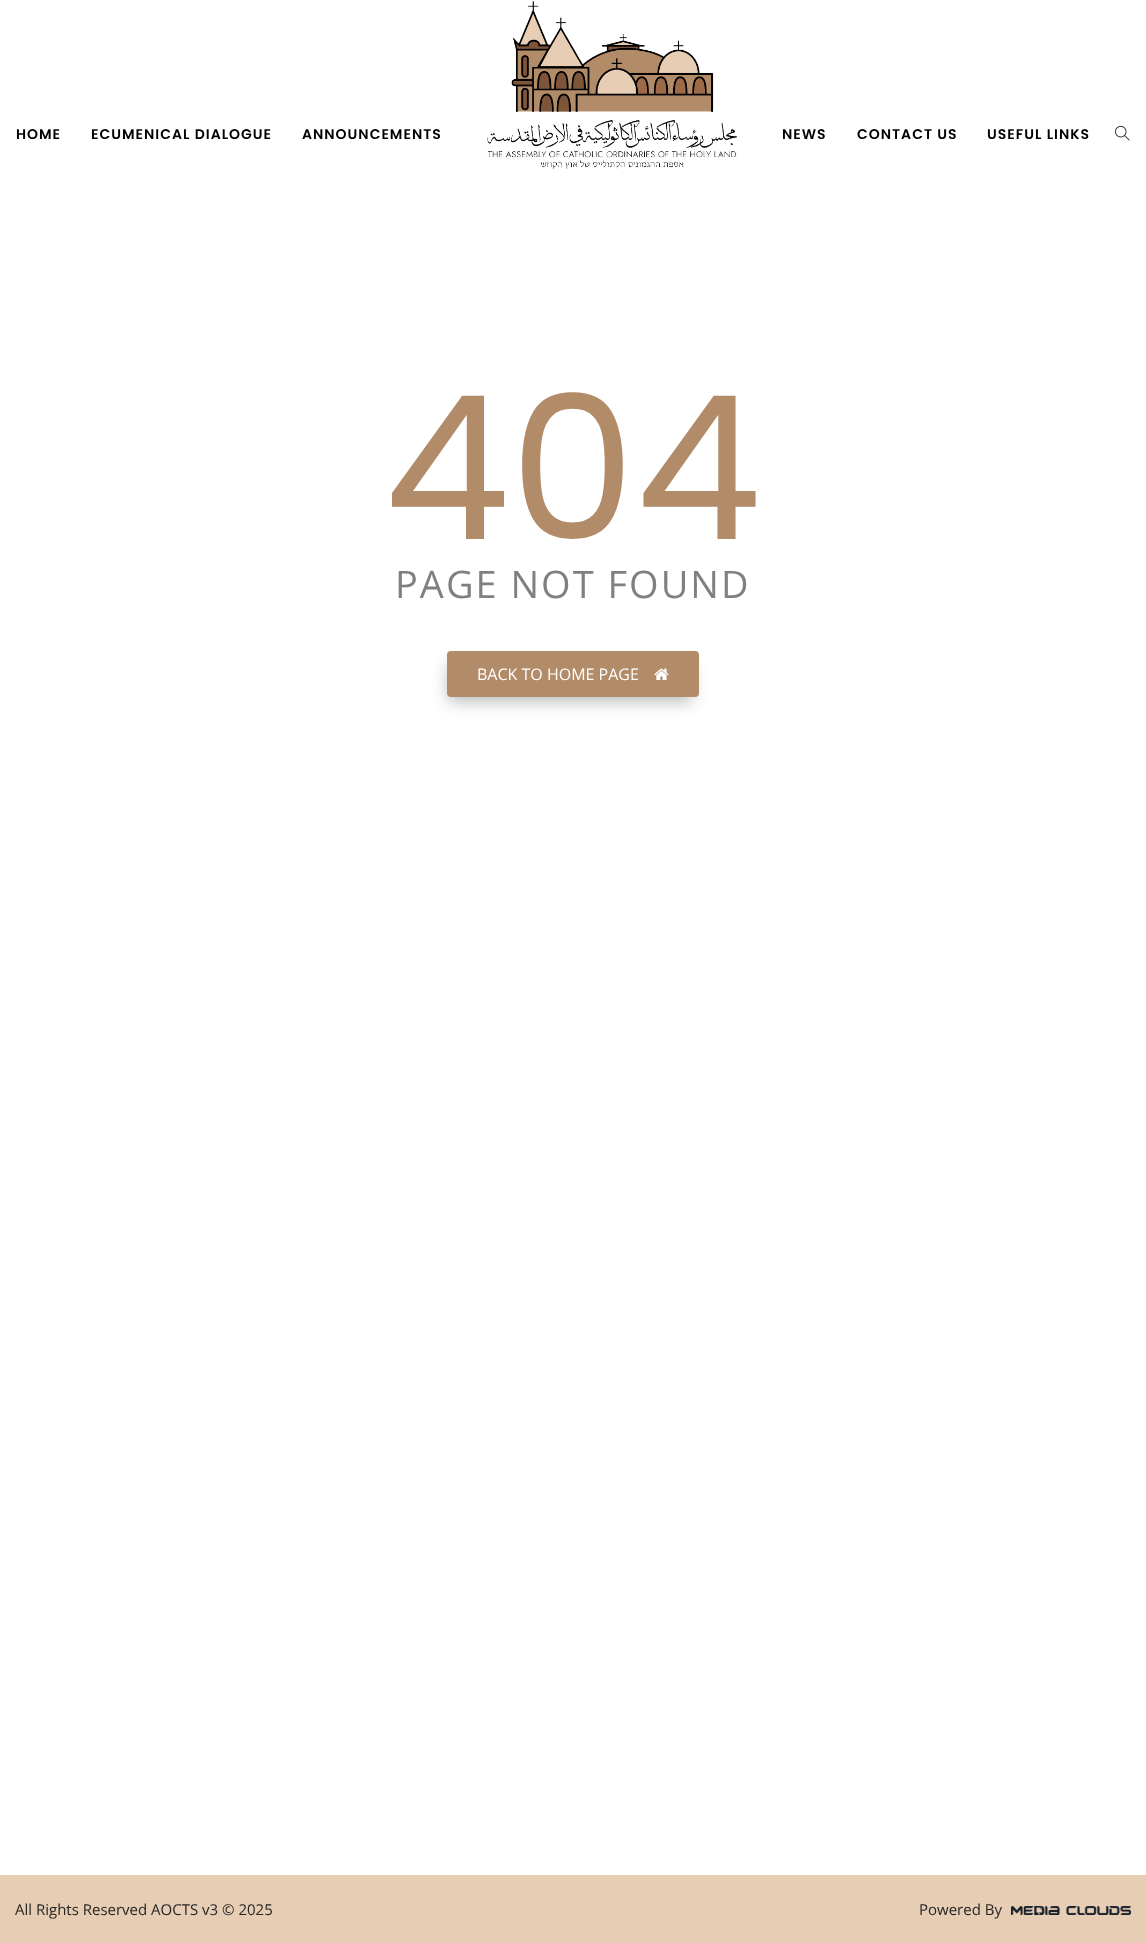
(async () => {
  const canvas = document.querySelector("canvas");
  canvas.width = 1146;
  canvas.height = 1943;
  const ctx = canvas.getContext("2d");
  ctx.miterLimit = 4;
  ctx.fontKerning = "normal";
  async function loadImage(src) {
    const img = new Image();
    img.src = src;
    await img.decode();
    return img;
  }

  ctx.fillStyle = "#ffffff";
  ctx.fillRect(0, 0, 1146, 1943);
  ctx.drawImage(await loadImage("img/1.png"), 487, 1, 250, 168);
  ctx.drawImage(await loadImage("img/2.png"), 1115, 125, 15, 16);
  ctx.fillStyle = "rgba(0, 0, 0, 0.26)";
  ctx.filter = "blur(8px)";
  ctx.beginPath();
  ctx.rect(448, 664, 244, 38);
  ctx.fill();
  ctx.filter = "none";
  ctx.fillStyle = "#b28b69";
  ctx.beginPath();
  ctx.roundRect(447, 651, 252, 46, 4);
  ctx.fill();
  ctx.drawImage(await loadImage("img/3.png"), 654, 668, 15, 12);
  ctx.fillStyle = "#e7cdb3";
  ctx.fillRect(0, 1875, 1146, 68);
  ctx.drawImage(await loadImage("img/4.png"), 1011, 1906, 120, 9);
  ctx.letterSpacing = "1px";
  ctx.font = "600 14px Poppins";
  ctx.fillStyle = "#000000";
  for (const [text, x, y] of [
    ["HOME", 16, 139],
    ["ECUMENICAL DIALOGUE", 91, 139],
    ["ANNOUNCEMENTS", 302, 139],
    ["NEWS", 782, 139],
    ["CONTACT US", 857, 139],
    ["USEFUL LINKS", 987, 139],
  ]) {
    ctx.fillText(text, x, y);
  }
  ctx.letterSpacing = "0px";
  ctx.font = "200px Poppins";
  ctx.fillStyle = "#b28b69";
  ctx.fillText("404", 384, 539);
  ctx.letterSpacing = "2px";
  ctx.font = "38px Open Sans";
  ctx.fillStyle = "#808080";
  ctx.fillText("PAGE NOT FOUND", 395, 598);
  ctx.letterSpacing = "0px";
  ctx.font = "16px Open Sans";
  ctx.fillStyle = "#ffffff";
  ctx.fillText("BACK TO HOME PAGE", 477, 680);
  ctx.font = "15px Open Sans";
  ctx.fillStyle = "#252525";
  ctx.fillText("All Rights Reserved AOCTS v3 © 2025", 15, 1915);
  ctx.fillText("Powered By", 919, 1915);
})();
